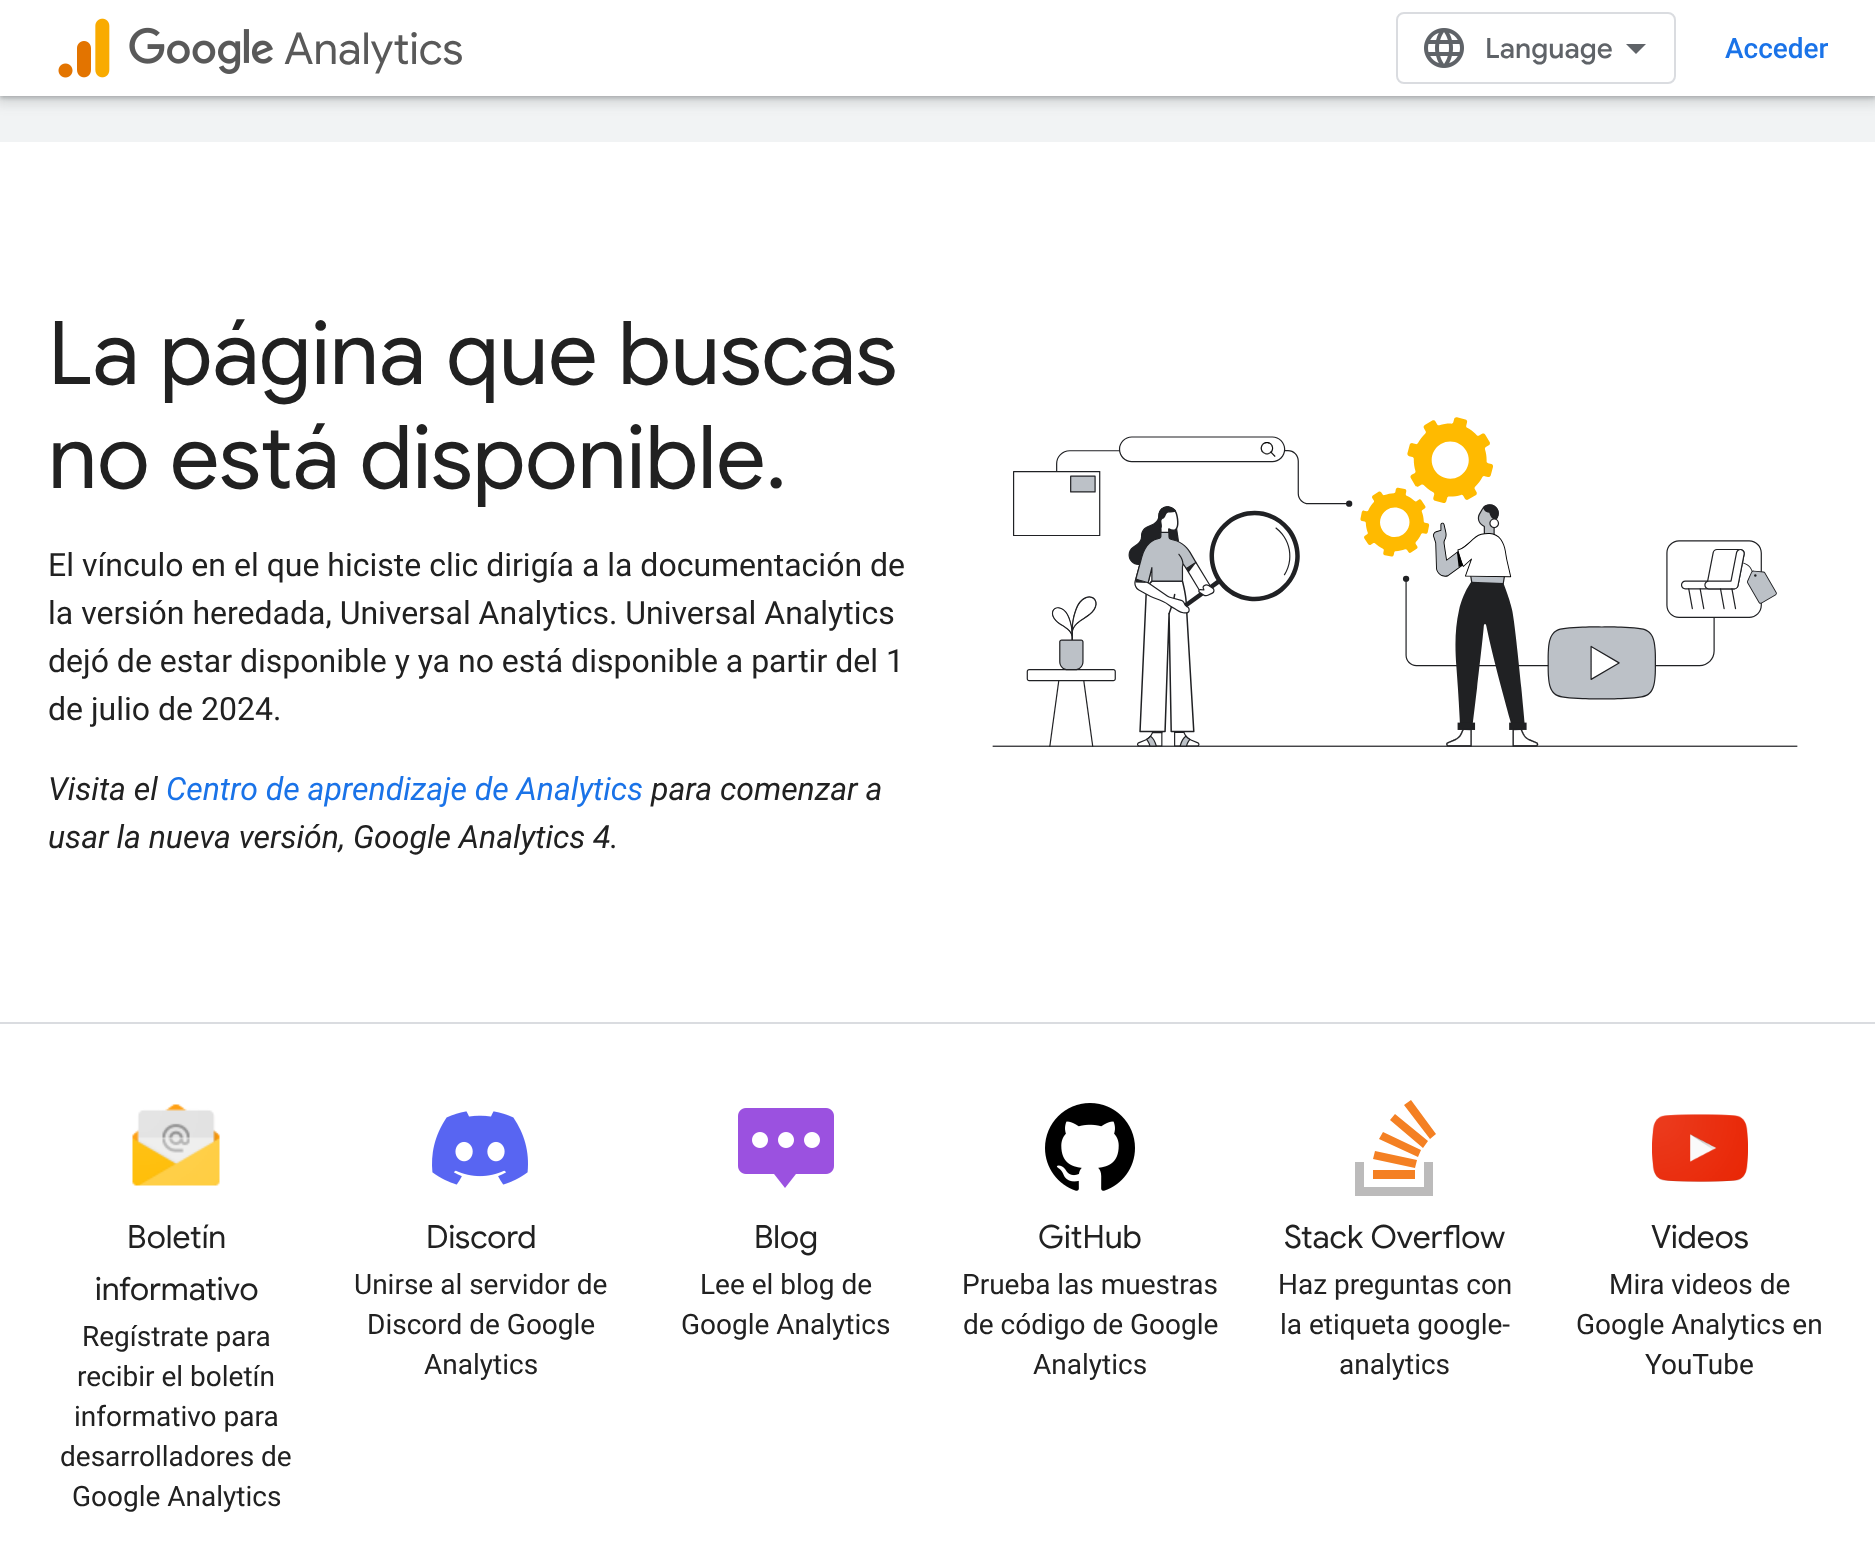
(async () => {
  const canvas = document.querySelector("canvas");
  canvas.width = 1875;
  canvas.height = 1558;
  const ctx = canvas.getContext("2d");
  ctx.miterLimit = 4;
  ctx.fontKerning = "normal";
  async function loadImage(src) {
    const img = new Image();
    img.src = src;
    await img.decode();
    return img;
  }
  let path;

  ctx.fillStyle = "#ffffff";
  ctx.fillRect(0, 0, 1875, 1558);
  ctx.fillStyle = "#f1f3f4";
  ctx.fillRect(0, 96, 1875, 46);
  ctx.fillStyle = "rgba(60, 64, 67, 0.15)";
  ctx.filter = "blur(6px)";
  ctx.beginPath();
  ctx.rect(-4, -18, 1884, 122);
  ctx.fill();
  ctx.filter = "none";
  ctx.fillStyle = "rgba(60, 64, 67, 0.3)";
  ctx.filter = "blur(2px)";
  ctx.beginPath();
  ctx.rect(0, -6, 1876, 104);
  ctx.fill();
  ctx.filter = "none";
  ctx.fillStyle = "#ffffff";
  ctx.fillRect(0, 0, 1875, 96);
  ctx.drawImage(await loadImage("img/1.png"), 58, 18, 52, 60);
  ctx.drawImage(await loadImage("img/2.png"), 129, 27, 144, 47);
  ctx.beginPath();
  ctx.roundRect(1397, 13, 278, 70, 7);
  ctx.strokeStyle = "#dadce0";
  ctx.lineWidth = 2;
  ctx.stroke();
  ctx.drawImage(await loadImage("img/3.png"), 1424, 28, 40, 40);
  ctx.fillStyle = "#5f6368";
  path = new Path2D("M1636 54L1626 44H1646Z");
  ctx.fill(path);
  ctx.drawImage(await loadImage("img/4.png"), 992, 417, 806, 330);
  ctx.fillStyle = "#dadce0";
  ctx.fillRect(0, 1022, 1875, 2);
  ctx.drawImage(await loadImage("img/5.png"), 132, 1104, 88, 82);
  ctx.drawImage(await loadImage("img/6.png"), 432, 1111, 96, 74);
  ctx.drawImage(await loadImage("img/7.png"), 738, 1108, 96, 80);
  ctx.drawImage(await loadImage("img/8.png"), 1045, 1103, 90, 88);
  ctx.fillStyle = "#bcbbbb";
  path = new Path2D("M1424 1187V1162H1433V1196H1355V1162H1364V1187Z");
  ctx.fill(path);
  ctx.fillStyle = "#f48023";
  path = new Path2D("M1373 1159L1415 1168L1417 1160L1375 1151ZM1379 1139L1418 1157L1421 1150L1383 1132ZM1390 1120L1423 1148L1428 1141L1395 1114ZM1411 1100L1404 1105L1430 1139L1436 1134ZM1373 1179H1415V1170H1373Z");
  ctx.fill(path);
  ctx.drawImage(await loadImage("img/9.png"), 1652, 1114, 96, 68);
  ctx.font = "44px Google Sans";
  ctx.fillStyle = "#595959";
  ctx.fillText("Analytics", 284, 64);
  ctx.font = "500 28px Google Sans";
  ctx.fillStyle = "#5f6368";
  ctx.fillText("Language", 1485, 58);
  ctx.font = "500 28px Roboto";
  ctx.fillStyle = "#1a73e8";
  ctx.fillText("Acceder", 1725, 58);
  ctx.font = "88px Google Sans";
  ctx.fillStyle = "#212121";
  ctx.fillText("La página que buscas", 48, 384);
  ctx.fillText("no está disponible.", 48, 488);
  ctx.font = "32px Roboto";
  for (const [text, x, y] of [
    ["El vínculo en el que hiciste clic dirigía a la documentación de", 48, 576],
    ["la versión heredada, Universal Analytics. Universal Analytics", 48, 624],
    ["dejó de estar disponible y ya no está disponible a partir del 1", 48, 672],
    ["de julio de 2024.", 48, 720],
  ]) {
    ctx.fillText(text, x, y);
  }
  ctx.font = "italic 32px Roboto";
  ctx.fillText("Visita el", 48, 800);
  ctx.fillStyle = "#1a73e8";
  ctx.fillText("Centro de aprendizaje de Analytics", 166, 800);
  ctx.fillStyle = "#212121";
  ctx.fillText("para comenzar a", 651, 800);
  ctx.fillText("usar la nueva versión, Google Analytics 4.", 48, 848);
  ctx.font = "32px Google Sans";
  ctx.fillText("Boletín", 127, 1248);
  ctx.fillText("informativo", 95, 1300);
  ctx.font = "28px Roboto";
  for (const [text, x, y] of [
    ["Regístrate para", 82, 1346],
    ["recibir el boletín", 77, 1386],
    ["informativo para", 74, 1426],
    ["desarrolladores de", 60, 1466],
    ["Google Analytics", 72, 1506],
  ]) {
    ctx.fillText(text, x, y);
  }
  ctx.font = "32px Google Sans";
  ctx.fillText("Discord", 426, 1248);
  ctx.font = "28px Roboto";
  for (const [text, x, y] of [
    ["Unirse al servidor de", 354, 1294],
    ["Discord de Google", 367, 1334],
    ["Analytics", 424, 1374],
  ]) {
    ctx.fillText(text, x, y);
  }
  ctx.font = "32px Google Sans";
  ctx.fillText("Blog", 754, 1248);
  ctx.font = "28px Roboto";
  ctx.fillText("Lee el blog de", 700, 1294);
  ctx.fillText("Google Analytics", 681, 1334);
  ctx.font = "32px Google Sans";
  ctx.fillText("GitHub", 1038, 1248);
  ctx.font = "28px Roboto";
  for (const [text, x, y] of [
    ["Prueba las muestras", 962, 1294],
    ["de código de Google", 963, 1334],
    ["Analytics", 1033, 1374],
  ]) {
    ctx.fillText(text, x, y);
  }
  ctx.font = "32px Google Sans";
  ctx.fillText("Stack Overflow", 1284, 1248);
  ctx.font = "28px Roboto";
  for (const [text, x, y] of [
    ["Haz preguntas con", 1278, 1294],
    ["la etiqueta google-", 1280, 1334],
    ["analytics", 1339, 1374],
  ]) {
    ctx.fillText(text, x, y);
  }
  ctx.font = "32px Google Sans";
  ctx.fillText("Videos", 1651, 1248);
  ctx.font = "28px Roboto";
  for (const [text, x, y] of [
    ["Mira videos de", 1609, 1294],
    ["Google Analytics en", 1576, 1334],
    ["YouTube", 1645, 1374],
  ]) {
    ctx.fillText(text, x, y);
  }
})();
